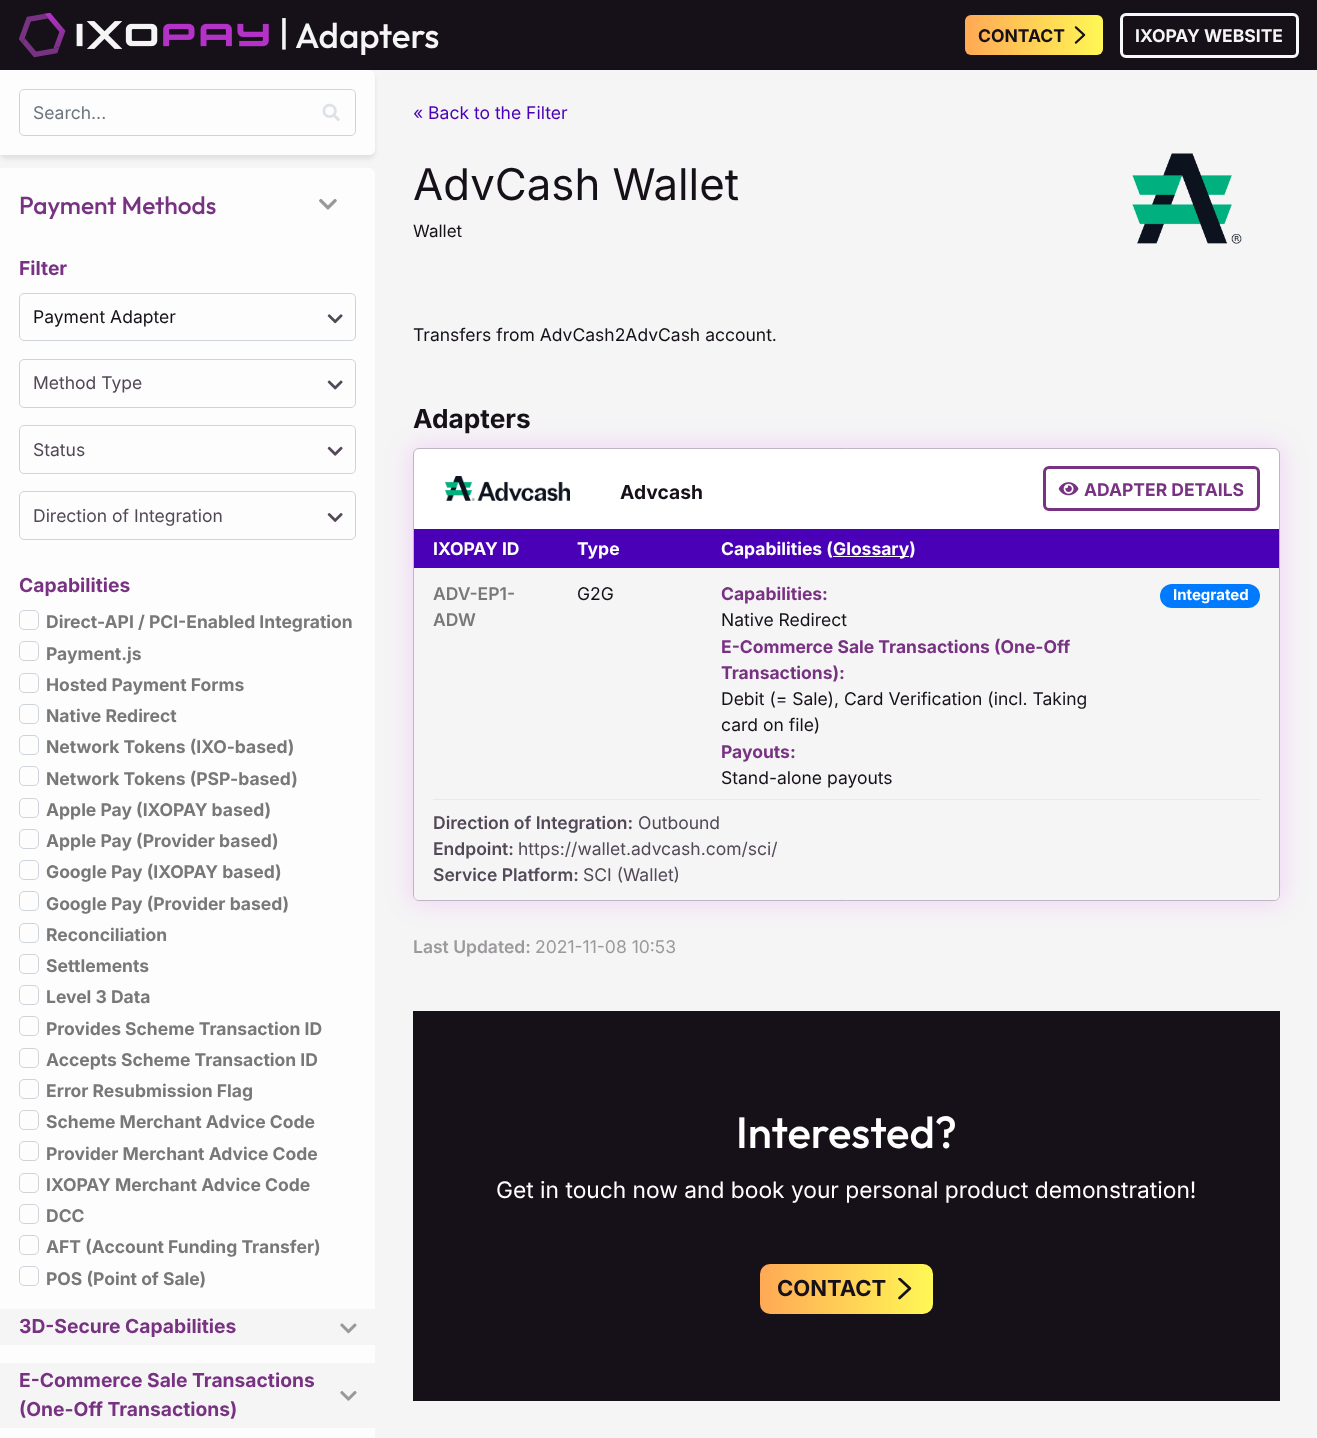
(async () => {
  const canvas = document.querySelector("canvas");
  canvas.width = 1317;
  canvas.height = 1438;
  const ctx = canvas.getContext("2d");
  ctx.miterLimit = 4;
  ctx.fontKerning = "normal";
  async function loadImage(src) {
    const img = new Image();
    img.src = src;
    await img.decode();
    return img;
  }
  let gradient, path;

  ctx.fillStyle = "#f5f5f5";
  ctx.fillRect(0, 0, 1317, 1438);
  ctx.fillStyle = "#161019";
  ctx.fillRect(0, 0, 1317, 70);
  ctx.drawImage(await loadImage("img/1.png"), 19, 13, 250, 45);
  gradient = ctx.createLinearGradient(965, 35, 1103, 35);
  gradient.addColorStop(0, "#ffa955");
  gradient.addColorStop(1, "#fff855");
  ctx.fillStyle = gradient;
  ctx.beginPath();
  ctx.roundRect(965, 15, 138, 40, 6);
  ctx.fill();
  ctx.drawImage(await loadImage("img/2.png"), 1074, 26, 12, 18);
  ctx.beginPath();
  ctx.roundRect(1121.5, 14.5, 176, 42, 4.5);
  ctx.strokeStyle = "#f8f9fa";
  ctx.lineWidth = 3;
  ctx.stroke();
  ctx.save();
  path = new Path2D("M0 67H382V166H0ZM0 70H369C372.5 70 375 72.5 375 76V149C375 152.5 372.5 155 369 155H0Z");
  ctx.clip(path, "evenodd");
  ctx.fillStyle = "rgba(0, 0, 0, 0.08)";
  ctx.filter = "blur(2px)";
  ctx.beginPath();
  ctx.roundRect(0, 74, 375, 85, 6);
  ctx.fill();
  ctx.filter = "none";
  ctx.restore();
  ctx.fillStyle = "#fdfdfd";
  ctx.beginPath();
  ctx.roundRect(0, 70, 375, 85, [0, 6, 6, 0]);
  ctx.fill();
  ctx.beginPath();
  ctx.roundRect(19.5, 89.5, 336, 46, 4.5);
  ctx.strokeStyle = "#ced4da";
  ctx.lineWidth = 1;
  ctx.stroke();
  ctx.drawImage(await loadImage("img/3.png"), 322, 103, 18, 18);
  ctx.fillStyle = "rgba(228, 57, 255, 0.16)";
  ctx.filter = "blur(12.5px)";
  ctx.beginPath();
  ctx.roundRect(410, 445, 873, 459, 9);
  ctx.fill();
  ctx.filter = "none";
  ctx.fillStyle = "#fdfdfd";
  path = new Path2D("M0 168H369C372.5 168 375 170.5 375 174V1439H0Z");
  ctx.fill(path);
  ctx.drawImage(await loadImage("img/4.png"), 319, 198, 18, 12);
  ctx.beginPath();
  ctx.roundRect(19.5, 293.5, 336, 47, 4.5);
  ctx.stroke();
  ctx.drawImage(await loadImage("img/5.png"), 327, 314, 16, 10);
  ctx.beginPath();
  ctx.roundRect(19.5, 359.5, 336, 48, 4.5);
  ctx.stroke();
  ctx.drawImage(await loadImage("img/6.png"), 327, 380, 16, 10);
  ctx.beginPath();
  ctx.roundRect(19.5, 425.5, 336, 48, 4.5);
  ctx.stroke();
  ctx.drawImage(await loadImage("img/7.png"), 327, 446, 16, 10);
  ctx.beginPath();
  ctx.roundRect(19.5, 491.5, 336, 48, 4.5);
  ctx.stroke();
  ctx.drawImage(await loadImage("img/8.png"), 327, 513, 16, 9);
  ctx.beginPath();
  ctx.roundRect(19.5, 610.5, 19, 19, 4.5);
  ctx.stroke();
  ctx.beginPath();
  ctx.roundRect(19.5, 641.5, 19, 19, 4.5);
  ctx.stroke();
  ctx.beginPath();
  ctx.roundRect(19.5, 673.5, 19, 19, 4.5);
  ctx.stroke();
  ctx.beginPath();
  ctx.roundRect(19.5, 704.5, 19, 19, 4.5);
  ctx.stroke();
  ctx.beginPath();
  ctx.roundRect(19.5, 735.5, 19, 19, 4.5);
  ctx.stroke();
  ctx.beginPath();
  ctx.roundRect(19.5, 766.5, 19, 19, 4.5);
  ctx.stroke();
  ctx.beginPath();
  ctx.roundRect(19.5, 798.5, 19, 19, 4.5);
  ctx.stroke();
  ctx.beginPath();
  ctx.roundRect(19.5, 829.5, 19, 19, 4.5);
  ctx.stroke();
  ctx.beginPath();
  ctx.roundRect(19.5, 860.5, 19, 19, 4.5);
  ctx.stroke();
  ctx.beginPath();
  ctx.roundRect(19.5, 891.5, 19, 19, 4.5);
  ctx.stroke();
  ctx.beginPath();
  ctx.roundRect(19.5, 923.5, 19, 19, 4.5);
  ctx.stroke();
  ctx.beginPath();
  ctx.roundRect(19.5, 954.5, 19, 19, 4.5);
  ctx.stroke();
  ctx.beginPath();
  ctx.roundRect(19.5, 985.5, 19, 19, 4.5);
  ctx.stroke();
  ctx.beginPath();
  ctx.roundRect(19.5, 1016.5, 19, 19, 4.5);
  ctx.stroke();
  ctx.beginPath();
  ctx.roundRect(19.5, 1048.5, 19, 19, 4.5);
  ctx.stroke();
  ctx.beginPath();
  ctx.roundRect(19.5, 1079.5, 19, 19, 4.5);
  ctx.stroke();
  ctx.beginPath();
  ctx.roundRect(19.5, 1110.5, 19, 19, 4.5);
  ctx.stroke();
  ctx.beginPath();
  ctx.roundRect(19.5, 1141.5, 19, 19, 4.5);
  ctx.stroke();
  ctx.beginPath();
  ctx.roundRect(19.5, 1173.5, 19, 19, 4.5);
  ctx.stroke();
  ctx.beginPath();
  ctx.roundRect(19.5, 1204.5, 19, 19, 4.5);
  ctx.stroke();
  ctx.beginPath();
  ctx.roundRect(19.5, 1235.5, 19, 19, 4.5);
  ctx.stroke();
  ctx.beginPath();
  ctx.roundRect(19.5, 1266.5, 19, 19, 4.5);
  ctx.stroke();
  ctx.fillStyle = "#f5f5f5";
  ctx.fillRect(0, 1309, 375, 36);
  ctx.drawImage(await loadImage("img/9.png"), 340, 1323, 17, 11);
  ctx.fillRect(0, 1363, 375, 65);
  ctx.drawImage(await loadImage("img/10.png"), 340, 1391, 17, 10);
  ctx.drawImage(await loadImage("img/11.png"), 1132, 153, 110, 91);
  ctx.fillStyle = "#ffffff";
  ctx.beginPath();
  ctx.roundRect(413.5, 448.5, 866, 452, 5.5);
  ctx.fill();
  ctx.strokeStyle = "#beb5c2";
  ctx.stroke();
  ctx.fillStyle = "#4900b7";
  ctx.fillRect(414, 529, 865, 39);
  ctx.drawImage(await loadImage("img/12.png"), 445, 476, 125, 25);
  ctx.beginPath();
  ctx.roundRect(1044.5, 467.5, 214, 42, 4.5);
  ctx.strokeStyle = "#783282";
  ctx.lineWidth = 3;
  ctx.stroke();
  ctx.drawImage(await loadImage("img/13.png"), 1058, 482, 21, 14);
  ctx.fillStyle = "#ffffff";
  ctx.fillRect(833, 556, 76, 1);
  ctx.fillStyle = "#f5f5f5";
  ctx.beginPath();
  ctx.roundRect(414, 568, 865, 332, [0, 0, 5, 5]);
  ctx.fill();
  ctx.fillStyle = "#007bff";
  ctx.beginPath();
  ctx.roundRect(1160, 584, 100, 24, 12);
  ctx.fill();
  ctx.fillStyle = "#e9e9e9";
  ctx.fillRect(433, 799, 827, 1);
  ctx.fillStyle = "#161019";
  ctx.fillRect(413, 1011, 867, 390);
  gradient = ctx.createLinearGradient(760, 1289, 933, 1289);
  gradient.addColorStop(0, "#ffa955");
  gradient.addColorStop(1, "#fff855");
  ctx.fillStyle = gradient;
  ctx.beginPath();
  ctx.roundRect(760, 1264, 173, 50, 10);
  ctx.fill();
  ctx.drawImage(await loadImage("img/14.png"), 898, 1278, 14, 22);
  ctx.font = "100 35px Outfit";
  ctx.fillStyle = "#f5f5f5";
  ctx.fillText("|", 279, 45);
  ctx.fillText("Adapters", 295, 48);
  ctx.font = "bold 17.5px Inter";
  ctx.fillStyle = "#161019";
  ctx.fillText("CONTACT", 978, 42);
  ctx.fillStyle = "#f5f5f5";
  ctx.fillText("IXOPAY WEBSITE", 1135, 42);
  ctx.font = "17.5px Inter";
  ctx.fillStyle = "#6c757d";
  ctx.fillText("Search...", 33, 119);
  ctx.font = "100 24.5px Outfit";
  ctx.fillStyle = "#783282";
  ctx.fillText("Payment Methods", 19, 214);
  ctx.font = "bold 19.25px Inter";
  ctx.fillText("Filter", 19, 275);
  ctx.font = "17.5px Inter";
  ctx.fillStyle = "#161019";
  ctx.fillText("Payment Adapter", 33, 323);
  ctx.fillStyle = "#524857";
  for (const [text, x, y] of [
    ["Method Type", 33, 389],
    ["Status", 33, 456],
    ["Direction of Integration", 33, 522],
  ]) {
    ctx.fillText(text, x, y);
  }
  ctx.font = "bold 19.25px Inter";
  ctx.fillStyle = "#783282";
  ctx.fillText("Capabilities", 19, 592);
  ctx.font = "bold 17.5px Inter";
  ctx.fillStyle = "#787878";
  for (const [text, x, y] of [
    ["Direct-API / PCI-Enabled Integration", 46, 628],
    ["Payment.js", 46, 660],
    ["Hosted Payment Forms", 46, 691],
    ["Native Redirect", 46, 722],
    ["Network Tokens (IXO-based)", 46, 753],
    ["Network Tokens (PSP-based)", 46, 785],
    ["Apple Pay (IXOPAY based)", 46, 816],
    ["Apple Pay (Provider based)", 46, 847],
    ["Google Pay (IXOPAY based)", 46, 878],
    ["Google Pay (Provider based)", 46, 910],
    ["Reconciliation", 46, 941],
    ["Settlements", 46, 972],
    ["Level 3 Data", 46, 1003],
    ["Provides Scheme Transaction ID", 46, 1035],
    ["Accepts Scheme Transaction ID", 46, 1066],
    ["Error Resubmission Flag", 46, 1097],
    ["Scheme Merchant Advice Code", 46, 1128],
    ["Provider Merchant Advice Code", 46, 1160],
    ["IXOPAY Merchant Advice Code", 46, 1191],
    ["DCC", 46, 1222],
    ["AFT (Account Funding Transfer)", 46, 1253],
    ["POS (Point of Sale)", 46, 1285],
  ]) {
    ctx.fillText(text, x, y);
  }
  ctx.font = "bold 19.25px Inter";
  ctx.fillStyle = "#783282";
  for (const [text, x, y] of [
    ["3D-Secure Capabilities", 19, 1333],
    ["E-Commerce Sale Transactions", 19, 1387],
    ["(One-Off Transactions)", 19, 1416],
  ]) {
    ctx.fillText(text, x, y);
  }
  ctx.font = "17.5px Inter";
  ctx.fillStyle = "#4900b7";
  ctx.fillText("« Back to the Filter", 413, 119);
  ctx.font = "43.75px Inter";
  ctx.fillStyle = "#161019";
  ctx.fillText("AdvCash Wallet", 413, 200);
  ctx.font = "17px Inter";
  ctx.fillText("Wallet", 413, 237);
  ctx.font = "17.5px Inter";
  ctx.fillText("Transfers from AdvCash2AdvCash account.", 413, 341);
  ctx.font = "bold 26.25px Inter";
  ctx.fillText("Adapters", 413, 428);
  ctx.font = "bold 19.25px Inter";
  ctx.fillText("Advcash", 620, 499);
  ctx.font = "bold 17.5px Inter";
  ctx.fillStyle = "#783282";
  ctx.fillText("ADAPTER DETAILS", 1084, 496);
  ctx.fillStyle = "#ffffff";
  for (const [text, x, y] of [
    ["IXOPAY ID", 433, 555],
    ["Type", 577, 555],
    ["Capabilities (", 721, 555],
    ["Glossary)", 833, 555],
  ]) {
    ctx.fillText(text, x, y);
  }
  ctx.font = "600 17.5px Inter";
  ctx.fillStyle = "#787878";
  ctx.fillText("ADV-EP1-", 433, 600);
  ctx.fillText("ADW", 433, 626);
  ctx.font = "17.5px Inter";
  ctx.fillStyle = "#161019";
  ctx.fillText("G2G", 577, 600);
  ctx.font = "bold 17.5px Inter";
  ctx.fillStyle = "#783282";
  ctx.fillText("Capabilities:", 721, 600);
  ctx.font = "17.5px Inter";
  ctx.fillStyle = "#161019";
  ctx.fillText("Native Redirect", 721, 626);
  ctx.font = "bold 17.5px Inter";
  ctx.fillStyle = "#783282";
  ctx.fillText("E-Commerce Sale Transactions (One-Off", 721, 653);
  ctx.fillText("Transactions):", 721, 679);
  ctx.font = "17.5px Inter";
  ctx.fillStyle = "#161019";
  ctx.fillText("Debit (= Sale), Card Verification (incl. Taking", 721, 705);
  ctx.fillText("card on file)", 721, 731);
  ctx.font = "bold 17.5px Inter";
  ctx.fillStyle = "#783282";
  ctx.fillText("Payouts:", 721, 758);
  ctx.font = "17.5px Inter";
  ctx.fillStyle = "#161019";
  ctx.fillText("Stand-alone payouts", 721, 784);
  ctx.font = "bold 15px Inter";
  ctx.fillStyle = "#ffffff";
  ctx.fillText("Integrated", 1173, 600);
  ctx.font = "600 17.5px Inter";
  ctx.fillStyle = "#524857";
  ctx.fillText("Direction of Integration:", 433, 829);
  ctx.font = "17.5px Inter";
  ctx.fillText("Outbound", 638, 829);
  ctx.font = "600 17.5px Inter";
  ctx.fillText("Endpoint:", 433, 855);
  ctx.font = "17.5px Inter";
  ctx.fillText("https://wallet.advcash.com/sci/", 518, 855);
  ctx.font = "600 17.5px Inter";
  ctx.fillText("Service Platform:", 433, 881);
  ctx.font = "17.5px Inter";
  ctx.fillText("SCI (Wallet)", 583, 881);
  ctx.font = "600 17.5px Inter";
  ctx.fillStyle = "#9c999d";
  ctx.fillText("Last Updated:", 413, 953);
  ctx.font = "17.5px Inter";
  ctx.fillText("2021-11-08 10:53", 535, 953);
  ctx.font = "100 43.75px Outfit";
  ctx.fillStyle = "#ffffff";
  ctx.fillText("Interested?", 736, 1148);
  ctx.font = "22.75px Inter";
  ctx.fillText("Get in touch now and book your personal product demonstration!", 496, 1198);
  ctx.font = "bold 22px Inter";
  ctx.fillStyle = "#161019";
  ctx.fillText("CONTACT", 777, 1296);
})();
